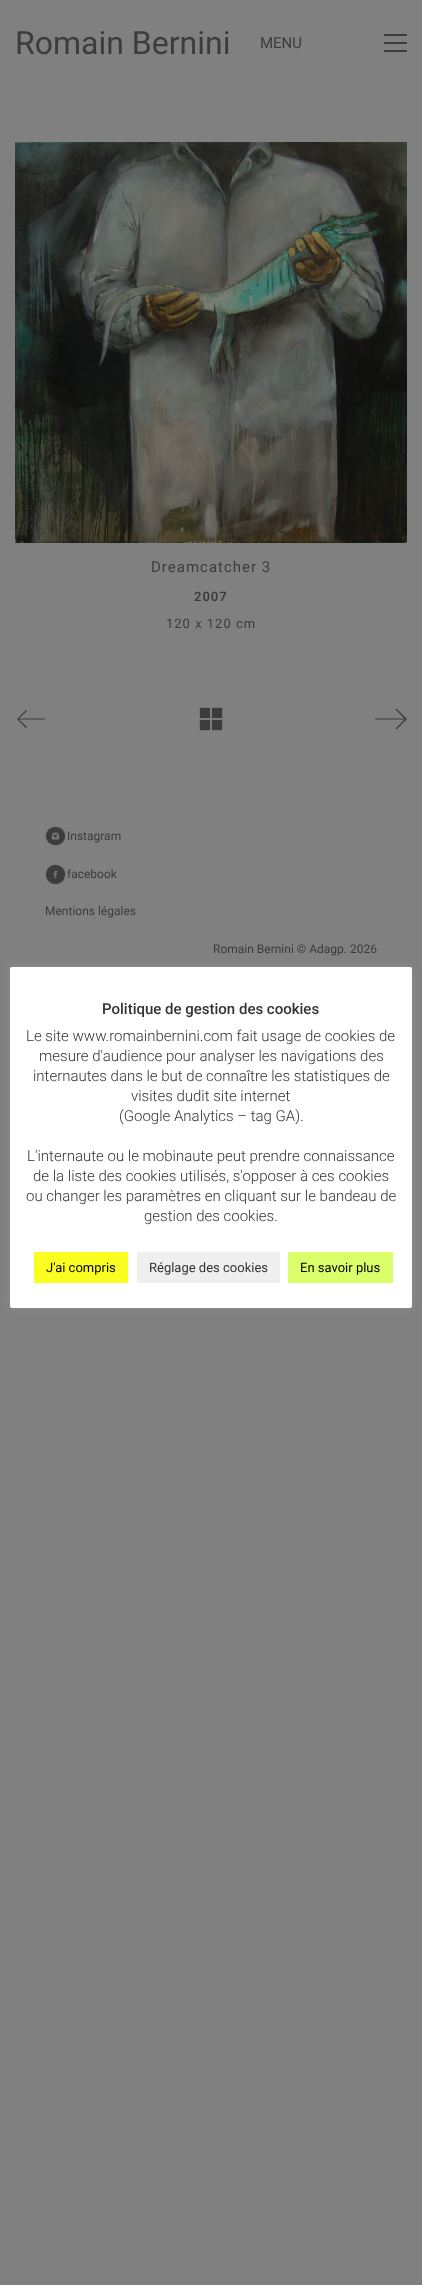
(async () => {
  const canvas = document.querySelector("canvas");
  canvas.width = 422;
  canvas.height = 2285;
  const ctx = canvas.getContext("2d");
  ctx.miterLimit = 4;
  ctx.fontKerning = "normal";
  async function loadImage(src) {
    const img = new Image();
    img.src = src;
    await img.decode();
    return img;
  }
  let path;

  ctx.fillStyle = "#808080";
  ctx.fillRect(0, 0, 422, 2285);
  for (const [x, y, w, h, color] of [
    [384, 34, 23, 2, "#3c3c3c"],
    [384, 42, 23, 2, "#3c3c3c"],
    [384, 50, 23, 2, "#3c3c3c"],
  ]) {
    ctx.fillStyle = color;
    ctx.fillRect(x, y, w, h);
  }
  ctx.drawImage(await loadImage("img/1.png"), 15, 142, 392, 401);
  path = new Path2D("M45 718.5H19L27 711L26 710L17 719L26 728L27 727L19 719.5H45Z");
  ctx.fill(path);
  ctx.drawImage(await loadImage("img/2.png"), 199, 707, 24, 24);
  path = new Path2D("M396.5 708.5L395.5 709.5L404.5 718.5H375V719.5H404.5L395.5 728.5L396.5 729.5L407 719Z");
  ctx.fill(path);
  ctx.drawImage(await loadImage("img/3.png"), 45, 826, 21, 20);
  ctx.drawImage(await loadImage("img/4.png"), 45, 864, 21, 21);
  ctx.fillStyle = "rgba(172, 171, 171, 0.3)";
  ctx.filter = "blur(5px)";
  ctx.beginPath();
  ctx.roundRect(10, 966, 402, 341, 2);
  ctx.fill();
  ctx.filter = "none";
  ctx.fillStyle = "#ffffff";
  ctx.beginPath();
  ctx.roundRect(10, 967, 402, 341, 2);
  ctx.fill();
  for (const [x, y, w, h, color] of [
    [34, 1252, 94, 31, "#fbff21"],
    [137, 1252, 143, 31, "#efefef"],
    [288, 1252, 105, 31, "#daff6b"],
  ]) {
    ctx.fillStyle = color;
    ctx.fillRect(x, y, w, h);
  }
  ctx.font = "32px Roboto";
  ctx.fillStyle = "#3c3c3c";
  ctx.fillText("Romain Bernini", 15, 54);
  ctx.font = "15px Roboto";
  ctx.fillText("MENU", 260, 48);
  ctx.letterSpacing = "1px";
  ctx.fillText("Dreamcatcher 3", 151, 572);
  ctx.font = "600 13px Roboto";
  ctx.fillText("2007", 194, 601);
  ctx.font = "13px Roboto";
  ctx.fillText("120 x 120 cm", 166, 628);
  ctx.letterSpacing = "0px";
  ctx.font = "12px Roboto";
  for (const [text, x, y] of [
    ["Instagram", 67, 840],
    ["facebook", 67, 878],
    ["Mentions légales", 45, 915],
    ["Romain Bernini © Adagp. 2026", 213, 953],
  ]) {
    ctx.fillText(text, x, y);
  }
  ctx.font = "500 15px Roboto";
  ctx.fillStyle = "#333333";
  ctx.fillText("Politique de gestion des cookies", 102, 1014);
  ctx.font = "300 15px Roboto";
  for (const [text, x, y] of [
    ["Le site www.romainbernini.com fait usage de cookies de", 26, 1041],
    ["mesure d'audience pour analyser les navigations des", 39, 1061],
    ["internautes dans le but de connaître les statistiques de", 33, 1081],
    ["visites dudit site internet", 131, 1101],
    ["(Google Analytics – tag GA).", 119, 1121],
    ["L'internaute ou le mobinaute peut prendre connaissance", 27, 1161],
    ["de la liste des cookies utilisés, s'opposer à ces cookies", 33, 1181],
    ["ou changer les paramètres en cliquant sur le bandeau de", 26, 1201],
    ["gestion des cookies.", 144, 1221],
  ]) {
    ctx.fillText(text, x, y);
  }
  ctx.font = "13px Roboto";
  ctx.fillStyle = "#000000";
  ctx.fillText("J'ai compris", 46, 1272);
  ctx.fillStyle = "#333333";
  ctx.fillText("Réglage des cookies", 149, 1272);
  ctx.fillStyle = "#000000";
  ctx.fillText("En savoir plus", 300, 1272);
})();
